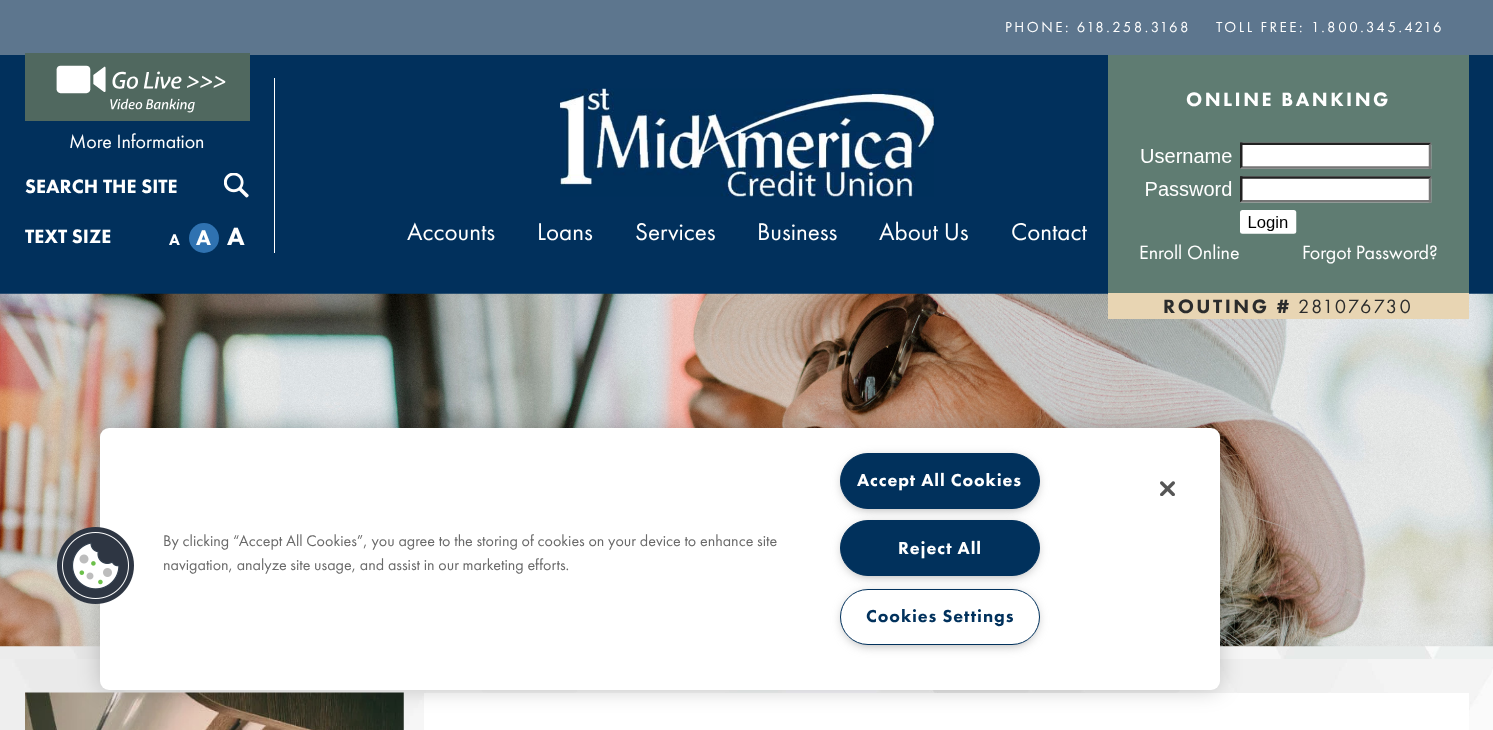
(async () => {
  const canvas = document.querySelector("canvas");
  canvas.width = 1493;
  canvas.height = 730;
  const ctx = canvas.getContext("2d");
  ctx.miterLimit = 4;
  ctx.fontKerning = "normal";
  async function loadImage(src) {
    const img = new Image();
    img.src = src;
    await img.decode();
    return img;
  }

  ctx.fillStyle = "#5d768e";
  ctx.fillRect(0, 0, 1493, 730);
  for (const [x, y, w, h, color] of [
    [0, 55, 1493, 239, "#01305c"],
    [274, 78, 1, 175, "#ffffff"],
    [25, 53, 225, 68, "#50685f"],
  ]) {
    ctx.fillStyle = color;
    ctx.fillRect(x, y, w, h);
  }
  ctx.drawImage(await loadImage("img/1.png"), 56, 65, 170, 48);
  ctx.drawImage(await loadImage("img/2.png"), 224, 173, 25, 25);
  ctx.fillStyle = "#2f72b1";
  ctx.beginPath();
  ctx.arc(204, 238, 15, 0, Math.PI * 2);
  ctx.fill();
  ctx.drawImage(await loadImage("img/3.png"), 560, 88, 374, 109);
  ctx.fillStyle = "#5f7c72";
  ctx.fillRect(1108, 55, 361, 238);
  ctx.drawImage(await loadImage("img/4.png"), 1141, 142, 291, 92);
  ctx.drawImage(await loadImage("img/5.png"), 0, 293, 1493, 354);
  ctx.fillStyle = "#e8d5b3";
  ctx.fillRect(1108, 293, 361, 26);
  ctx.drawImage(await loadImage("img/8.png"), 0, 646, 1493, 84);
  ctx.drawImage(await loadImage("img/9.png"), 25, 692, 379, 38);
  ctx.fillStyle = "#ffffff";
  ctx.fillRect(424, 693, 1045, 37);
  ctx.fillStyle = "rgba(0, 0, 0, 0.2)";
  ctx.filter = "blur(11px)";
  ctx.beginPath();
  ctx.roundRect(100, 428, 1120, 262, 9);
  ctx.fill();
  ctx.filter = "none";
  ctx.fillStyle = "#ffffff";
  ctx.beginPath();
  ctx.roundRect(100, 428, 1120, 262, 9);
  ctx.fill();
  ctx.drawImage(await loadImage("img/6.png"), 57, 527, 77, 77);
  ctx.fillStyle = "#999999";
  ctx.filter = "blur(6px)";
  ctx.beginPath();
  ctx.roundRect(844, 459, 192, 49, 24.5);
  ctx.fill();
  ctx.filter = "none";
  ctx.fillStyle = "#01315c";
  ctx.beginPath();
  ctx.roundRect(840.5, 453.5, 199, 55, 27.5);
  ctx.fill();
  ctx.strokeStyle = "#01315c";
  ctx.stroke();
  ctx.fillStyle = "#999999";
  ctx.filter = "blur(6px)";
  ctx.beginPath();
  ctx.roundRect(844, 526, 192, 49, 24.5);
  ctx.fill();
  ctx.filter = "none";
  ctx.fillStyle = "#01315c";
  ctx.beginPath();
  ctx.roundRect(840.5, 520.5, 199, 55, 27.5);
  ctx.fill();
  ctx.stroke();
  ctx.fillStyle = "#999999";
  ctx.filter = "blur(6px)";
  ctx.beginPath();
  ctx.roundRect(844, 595, 192, 49, 24.5);
  ctx.fill();
  ctx.filter = "none";
  ctx.fillStyle = "#ffffff";
  ctx.beginPath();
  ctx.roundRect(840.5, 589.5, 199, 55, 27.5);
  ctx.fill();
  ctx.stroke();
  ctx.drawImage(await loadImage("img/7.png"), 1160, 481, 15, 15);
  ctx.letterSpacing = "2.5px";
  ctx.font = "15px Futura PT";
  ctx.fillText("PHONE: 618.258.3168", 1005, 32);
  ctx.fillText("TOLL FREE: 1.800.345.4216", 1216, 32);
  ctx.letterSpacing = "0px";
  ctx.font = "20px Futura PT";
  ctx.fillText("More Information", 69, 148);
  ctx.font = "900 20px Futura PT";
  ctx.fillText("SEARCH THE SITE", 25, 193);
  ctx.fillText("TEXT SIZE", 25, 243);
  ctx.font = "900 16px Futura PT";
  ctx.fillText("A", 169, 245);
  ctx.font = "900 22px Futura PT";
  ctx.fillText("A", 196, 245);
  ctx.font = "900 26px Futura PT";
  ctx.fillText("A", 227, 245);
  ctx.font = "25px Futura PT";
  for (const [text, x, y] of [
    ["Accounts", 407, 240],
    ["Loans", 537, 240],
    ["Services", 635, 240],
    ["Business", 757, 240],
    ["About Us", 879, 240],
    ["Contact", 1011, 240],
  ]) {
    ctx.fillText(text, x, y);
  }
  ctx.letterSpacing = "2.5px";
  ctx.font = "900 20px Futura PT";
  ctx.fillText("ONLINE BANKING", 1186, 106);
  ctx.letterSpacing = "0px";
  ctx.font = "20px Futura PT";
  ctx.fillText("Enroll Online", 1139, 259);
  ctx.fillText("Forgot Password?", 1302, 259);
  ctx.letterSpacing = "2.5px";
  ctx.font = "900 20px Futura PT";
  ctx.fillStyle = "#2b2c2c";
  ctx.fillText("ROUTING #", 1163, 313);
  ctx.font = "20px Futura PT";
  ctx.fillText("281076730", 1298, 313);
  ctx.letterSpacing = "0px";
  ctx.font = "16px Futura PT";
  ctx.fillStyle = "#696969";
  ctx.fillText("By clicking “Accept All Cookies”, you agree to the storing of cookies on your device to enhance site", 163, 546);
  ctx.fillText("navigation, analyze site usage, and assist in our marketing efforts.", 163, 570);
  ctx.letterSpacing = "0.9px";
  ctx.font = "900 18px Futura PT";
  ctx.fillStyle = "#ffffff";
  ctx.fillText("Accept All Cookies", 857, 486);
  ctx.fillText("Reject All", 898, 554);
  ctx.fillStyle = "#01315c";
  ctx.fillText("Cookies Settings", 866, 622);
})();
